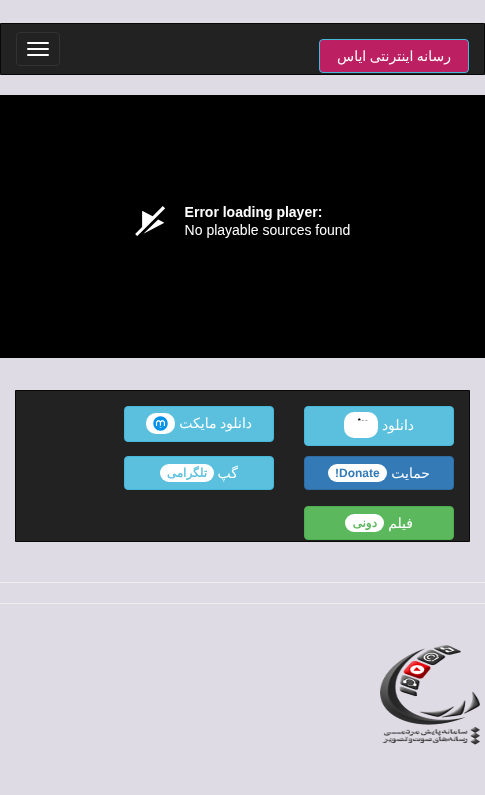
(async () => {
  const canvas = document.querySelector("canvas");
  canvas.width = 485;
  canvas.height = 795;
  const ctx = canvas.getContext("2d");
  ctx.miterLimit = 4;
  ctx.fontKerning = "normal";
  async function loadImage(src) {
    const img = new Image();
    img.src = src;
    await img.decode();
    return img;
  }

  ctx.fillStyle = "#dfdbe5";
  ctx.fillRect(0, 0, 485, 795);
  ctx.fillStyle = "#222222";
  ctx.beginPath();
  ctx.rect(0.5, 23.5, 484, 51);
  ctx.fill();
  ctx.strokeStyle = "#080808";
  ctx.stroke();
  ctx.fillStyle = "#bd1f63";
  ctx.beginPath();
  ctx.roundRect(319.5, 39.5, 149, 33, 3.5);
  ctx.fill();
  ctx.strokeStyle = "#46b8da";
  ctx.stroke();
  ctx.beginPath();
  ctx.roundRect(16.5, 32.5, 43, 33, 3.5);
  ctx.strokeStyle = "#333333";
  ctx.stroke();
  ctx.fillStyle = "#ffffff";
  ctx.beginPath();
  ctx.roundRect(27, 42, 22, 2, 1);
  ctx.fill();
  ctx.beginPath();
  ctx.roundRect(27, 48, 22, 2, 1);
  ctx.fill();
  ctx.beginPath();
  ctx.roundRect(27, 54, 22, 2, 1);
  ctx.fill();
  ctx.drawImage(await loadImage("img/1.png"), 0, 95, 485, 263);
  ctx.fillStyle = "#222222";
  ctx.beginPath();
  ctx.rect(15.5, 390.5, 454, 151);
  ctx.fill();
  ctx.strokeStyle = "#080808";
  ctx.stroke();
  ctx.fillStyle = "#5bc0de";
  ctx.beginPath();
  ctx.roundRect(304.5, 406.5, 149, 39, 3.5);
  ctx.fill();
  ctx.strokeStyle = "#46b8da";
  ctx.stroke();
  ctx.fillStyle = "#ffffff";
  ctx.beginPath();
  ctx.roundRect(344, 412, 34, 26, 10);
  ctx.fill();
  ctx.drawImage(await loadImage("img/2.png"), 358, 418, 10, 3);
  ctx.fillStyle = "#5bc0de";
  ctx.beginPath();
  ctx.roundRect(124.5, 406.5, 149, 35, 3.5);
  ctx.fill();
  ctx.stroke();
  ctx.fillStyle = "#ffffff";
  ctx.beginPath();
  ctx.roundRect(146, 413, 29, 21, 10);
  ctx.fill();
  ctx.drawImage(await loadImage("img/3.png"), 153, 416, 15, 15);
  ctx.fillStyle = "#337ab7";
  ctx.beginPath();
  ctx.roundRect(304.5, 456.5, 149, 33, 3.5);
  ctx.fill();
  ctx.strokeStyle = "#2e6da4";
  ctx.stroke();
  ctx.fillStyle = "#ffffff";
  ctx.beginPath();
  ctx.roundRect(328, 464, 59, 18, 9);
  ctx.fill();
  ctx.fillStyle = "#5bc0de";
  ctx.beginPath();
  ctx.roundRect(124.5, 456.5, 149, 33, 3.5);
  ctx.fill();
  ctx.strokeStyle = "#46b8da";
  ctx.stroke();
  ctx.fillStyle = "#ffffff";
  ctx.beginPath();
  ctx.roundRect(160, 464, 54, 18, 9);
  ctx.fill();
  ctx.fillStyle = "#5cb85c";
  ctx.beginPath();
  ctx.roundRect(304.5, 506.5, 149, 33, 3.5);
  ctx.fill();
  ctx.strokeStyle = "#4cae4c";
  ctx.stroke();
  ctx.fillStyle = "#ffffff";
  ctx.beginPath();
  ctx.roundRect(345, 514, 39, 18, 9);
  ctx.fill();
  ctx.fillStyle = "#eeeeee";
  ctx.fillRect(0, 582, 485, 1);
  ctx.fillRect(0, 603, 485, 1);
  ctx.drawImage(await loadImage("img/4.png"), 380, 645, 100, 100);
  ctx.wordSpacing = "-1px";
  ctx.direction = "rtl";
  ctx.font = "14px DejaVu Sans";
  ctx.fillStyle = "#ffffff";
  ctx.fillText("رسانه اینترنتی ایاس", 451, 61);
  ctx.wordSpacing = "0px";
  ctx.fillText("دانلود", 414, 430);
  ctx.wordSpacing = "-1px";
  ctx.fillText("دانلود مایکت", 252, 428);
  ctx.wordSpacing = "0px";
  ctx.fillText("حمایت", 430, 478);
  ctx.direction = "ltr";
  ctx.font = "bold 12px Liberation Sans";
  ctx.fillStyle = "#337ab7";
  ctx.fillText("!Donate", 335, 477);
  ctx.direction = "rtl";
  ctx.font = "14px DejaVu Sans";
  ctx.fillStyle = "#ffffff";
  ctx.fillText("گپ", 238, 478);
  ctx.font = "bold 12px DejaVu Sans";
  ctx.fillStyle = "#5bc0de";
  ctx.fillText("تلگرامی", 207, 477);
  ctx.font = "14px DejaVu Sans";
  ctx.fillStyle = "#ffffff";
  ctx.fillText("فیلم", 413, 528);
  ctx.font = "bold 12px DejaVu Sans";
  ctx.fillStyle = "#5cb85c";
  ctx.fillText("دونی", 377, 527);
})();
